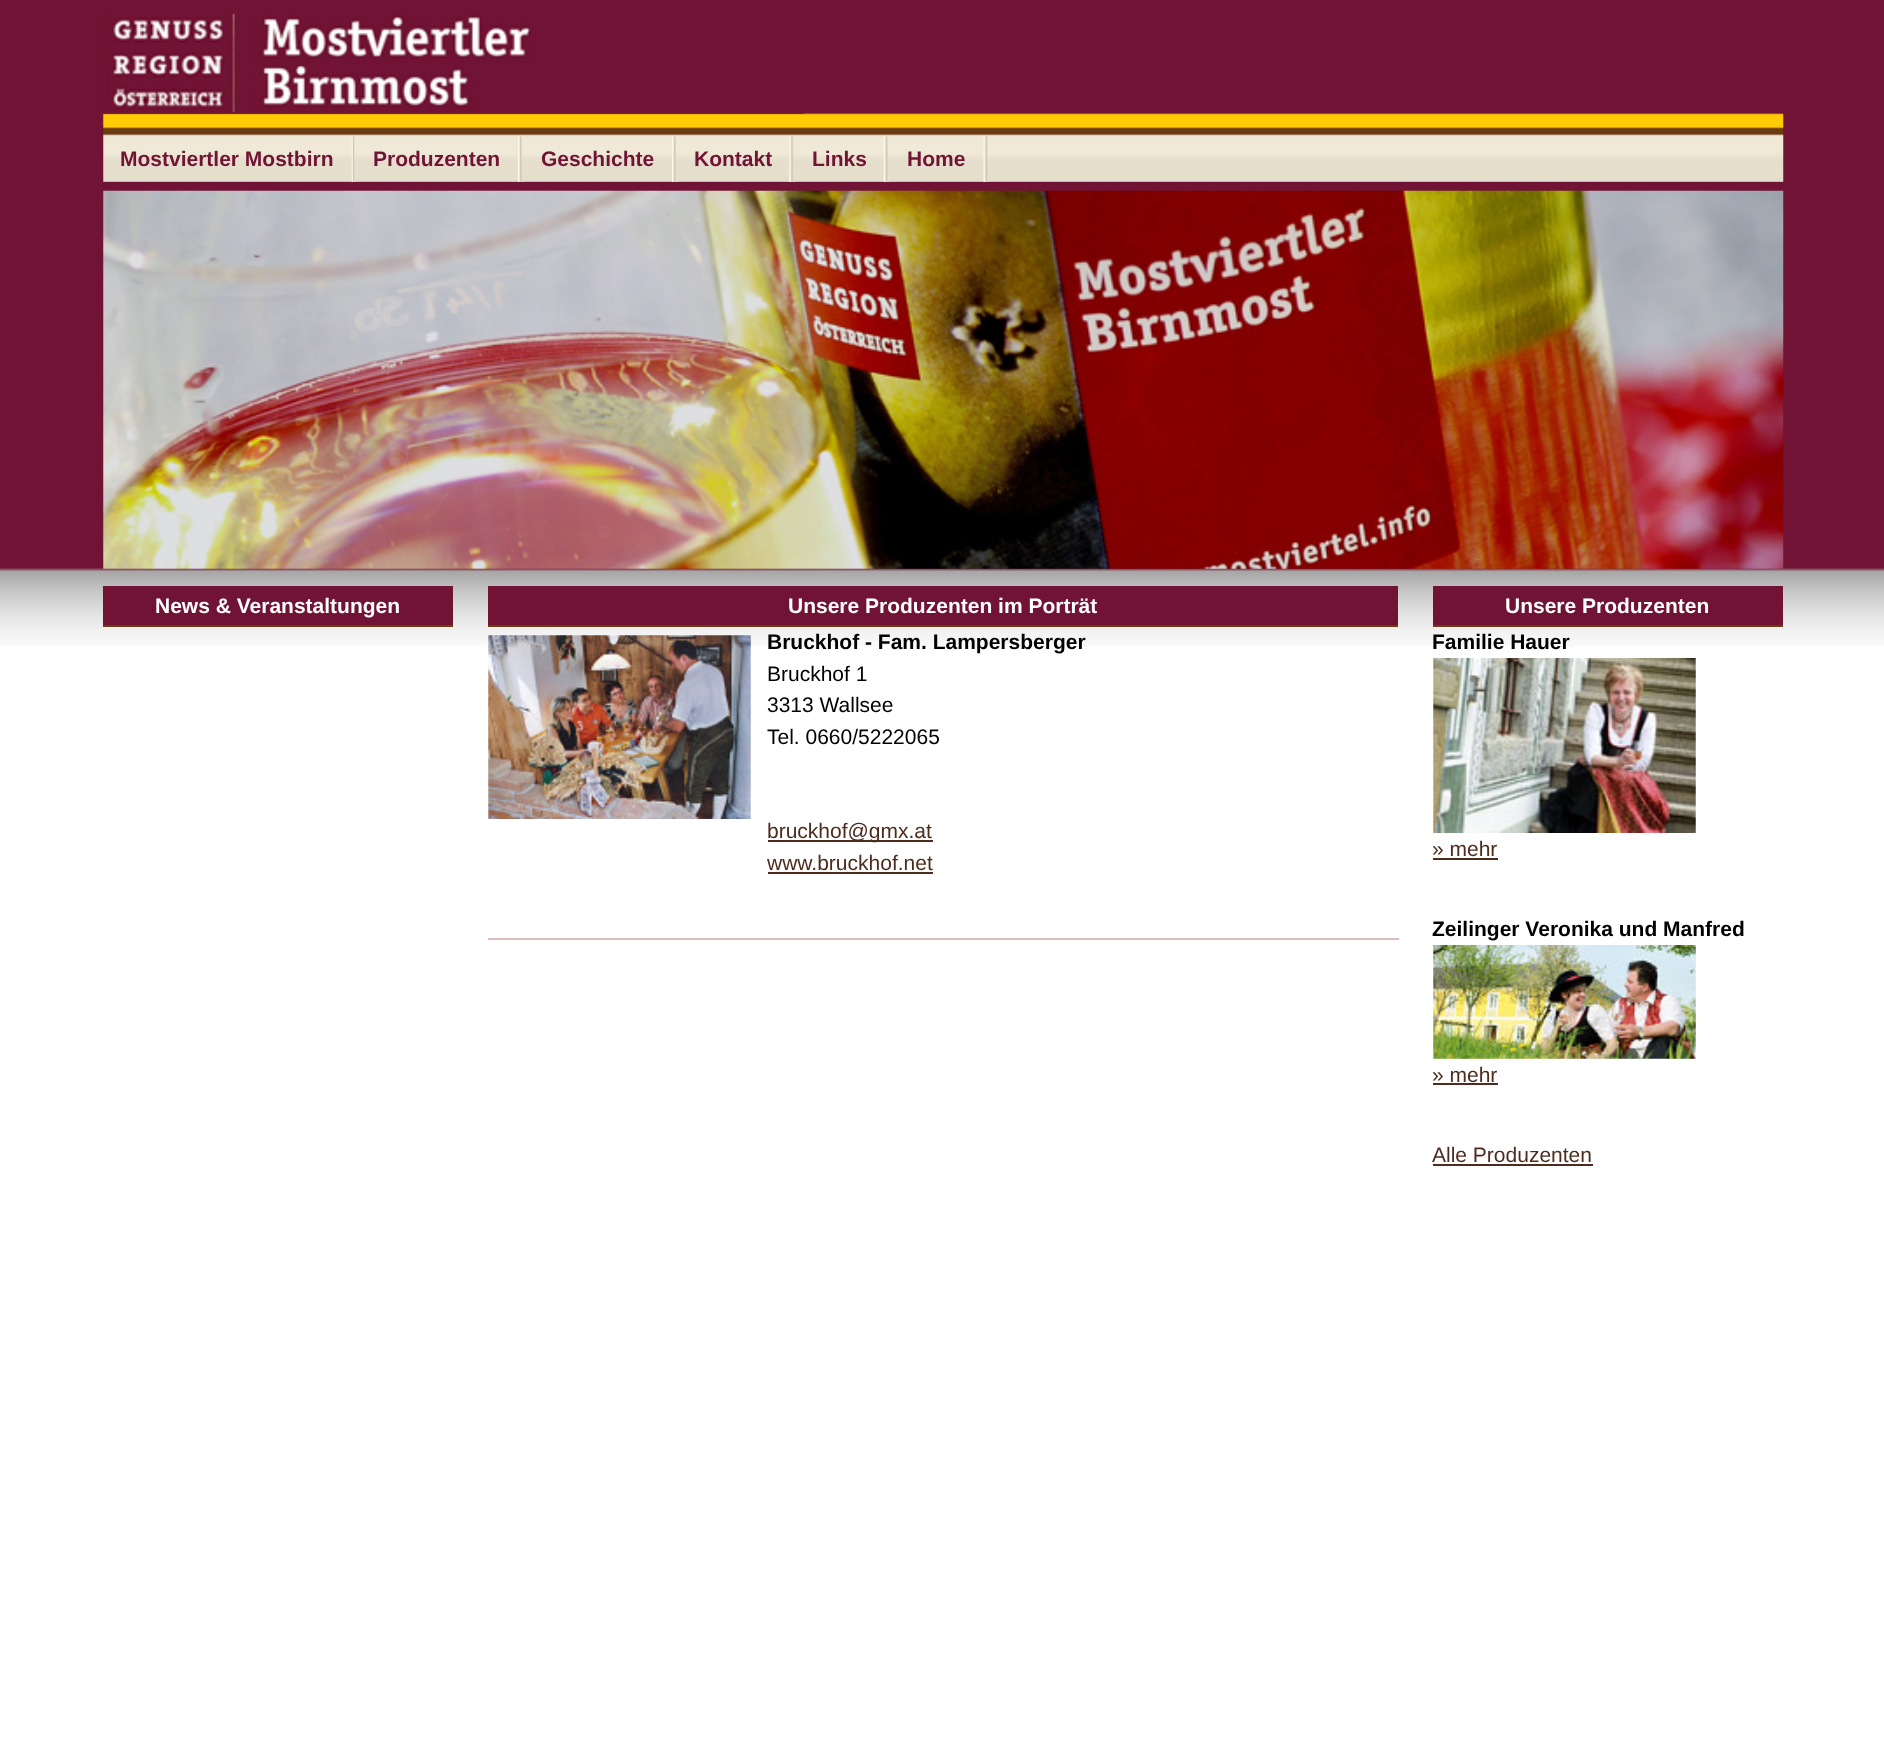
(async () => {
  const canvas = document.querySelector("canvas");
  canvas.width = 1884;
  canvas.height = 1748;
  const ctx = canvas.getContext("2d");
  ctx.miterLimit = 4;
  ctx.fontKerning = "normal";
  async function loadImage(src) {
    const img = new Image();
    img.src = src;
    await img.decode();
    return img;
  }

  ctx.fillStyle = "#ffffff";
  ctx.fillRect(0, 0, 1884, 1748);
  ctx.drawImage(await loadImage("img/1.png"), 0, 0, 1884, 647);
  ctx.drawImage(await loadImage("img/2.png"), 103, 113, 1681, 69);
  ctx.drawImage(await loadImage("img/3.png"), 103, 13, 701, 101);
  ctx.drawImage(await loadImage("img/4.png"), 351, 136, 5, 46);
  ctx.drawImage(await loadImage("img/5.png"), 518, 136, 6, 46);
  ctx.drawImage(await loadImage("img/5.png"), 672, 136, 6, 46);
  ctx.drawImage(await loadImage("img/6.png"), 789, 136, 6, 46);
  ctx.drawImage(await loadImage("img/7.png"), 883, 136, 6, 46);
  ctx.drawImage(await loadImage("img/8.png"), 983, 136, 6, 46);
  ctx.drawImage(await loadImage("img/9.png"), 103, 190, 1681, 379);
  for (const [x, y, w, h, color] of [
    [103, 586, 350, 39, "#711335"],
    [103, 625, 350, 2, "#6b3c12"],
    [488, 586, 910, 39, "#711335"],
    [488, 625, 910, 2, "#6b3c12"],
  ]) {
    ctx.fillStyle = color;
    ctx.fillRect(x, y, w, h);
  }
  ctx.drawImage(await loadImage("img/10.png"), 488, 635, 263, 184);
  for (const [x, y, w, h, color] of [
    [768, 840, 165, 2, "#4e2c1d"],
    [768, 872, 165, 2, "#4e2c1d"],
    [488, 938, 911, 2, "#d9bdbc"],
    [1433, 586, 350, 39, "#711335"],
    [1433, 625, 350, 2, "#6b3c12"],
  ]) {
    ctx.fillStyle = color;
    ctx.fillRect(x, y, w, h);
  }
  ctx.drawImage(await loadImage("img/11.png"), 1433, 658, 263, 175);
  ctx.fillStyle = "#4e2c1d";
  ctx.fillRect(1433, 858, 65, 2);
  ctx.drawImage(await loadImage("img/12.png"), 1433, 945, 263, 114);
  ctx.fillRect(1433, 1083, 65, 2);
  ctx.fillRect(1433, 1164, 160, 2);
  ctx.font = "bold 21px Liberation Sans";
  ctx.fillStyle = "#711335";
  for (const [text, x, y] of [
    ["Mostviertler Mostbirn", 120, 166],
    ["Produzenten", 373, 166],
    ["Geschichte", 541, 166],
    ["Kontakt", 694, 166],
    ["Links", 812, 166],
    ["Home", 907, 166],
  ]) {
    ctx.fillText(text, x, y);
  }
  ctx.fillStyle = "#ffffff";
  ctx.fillText("News & Veranstaltungen", 155, 613);
  ctx.fillText("Unsere Produzenten im Porträt", 788, 613);
  ctx.fillStyle = "#000000";
  ctx.fillText("Bruckhof - Fam. Lampersberger", 767, 649);
  ctx.font = "21px Liberation Sans";
  for (const [text, x, y] of [
    ["Bruckhof 1", 767, 681],
    ["3313 Wallsee", 767, 712],
    ["Tel. 0660/5222065", 767, 744],
  ]) {
    ctx.fillText(text, x, y);
  }
  ctx.fillStyle = "#4e2c1d";
  ctx.fillText("bruckhof@gmx.at", 767, 838);
  ctx.fillText("www.bruckhof.net", 767, 870);
  ctx.font = "bold 21px Liberation Sans";
  ctx.fillStyle = "#ffffff";
  ctx.fillText("Unsere Produzenten", 1505, 613);
  ctx.fillStyle = "#000000";
  ctx.fillText("Familie Hauer", 1432, 649);
  ctx.font = "21px Liberation Sans";
  ctx.fillStyle = "#4e2c1d";
  ctx.fillText("» mehr", 1432, 856);
  ctx.font = "bold 21px Liberation Sans";
  ctx.fillStyle = "#000000";
  ctx.fillText("Zeilinger Veronika und Manfred", 1432, 936);
  ctx.font = "21px Liberation Sans";
  ctx.fillStyle = "#4e2c1d";
  ctx.fillText("» mehr", 1432, 1082);
  ctx.fillText("Alle Produzenten", 1432, 1162);
})();
